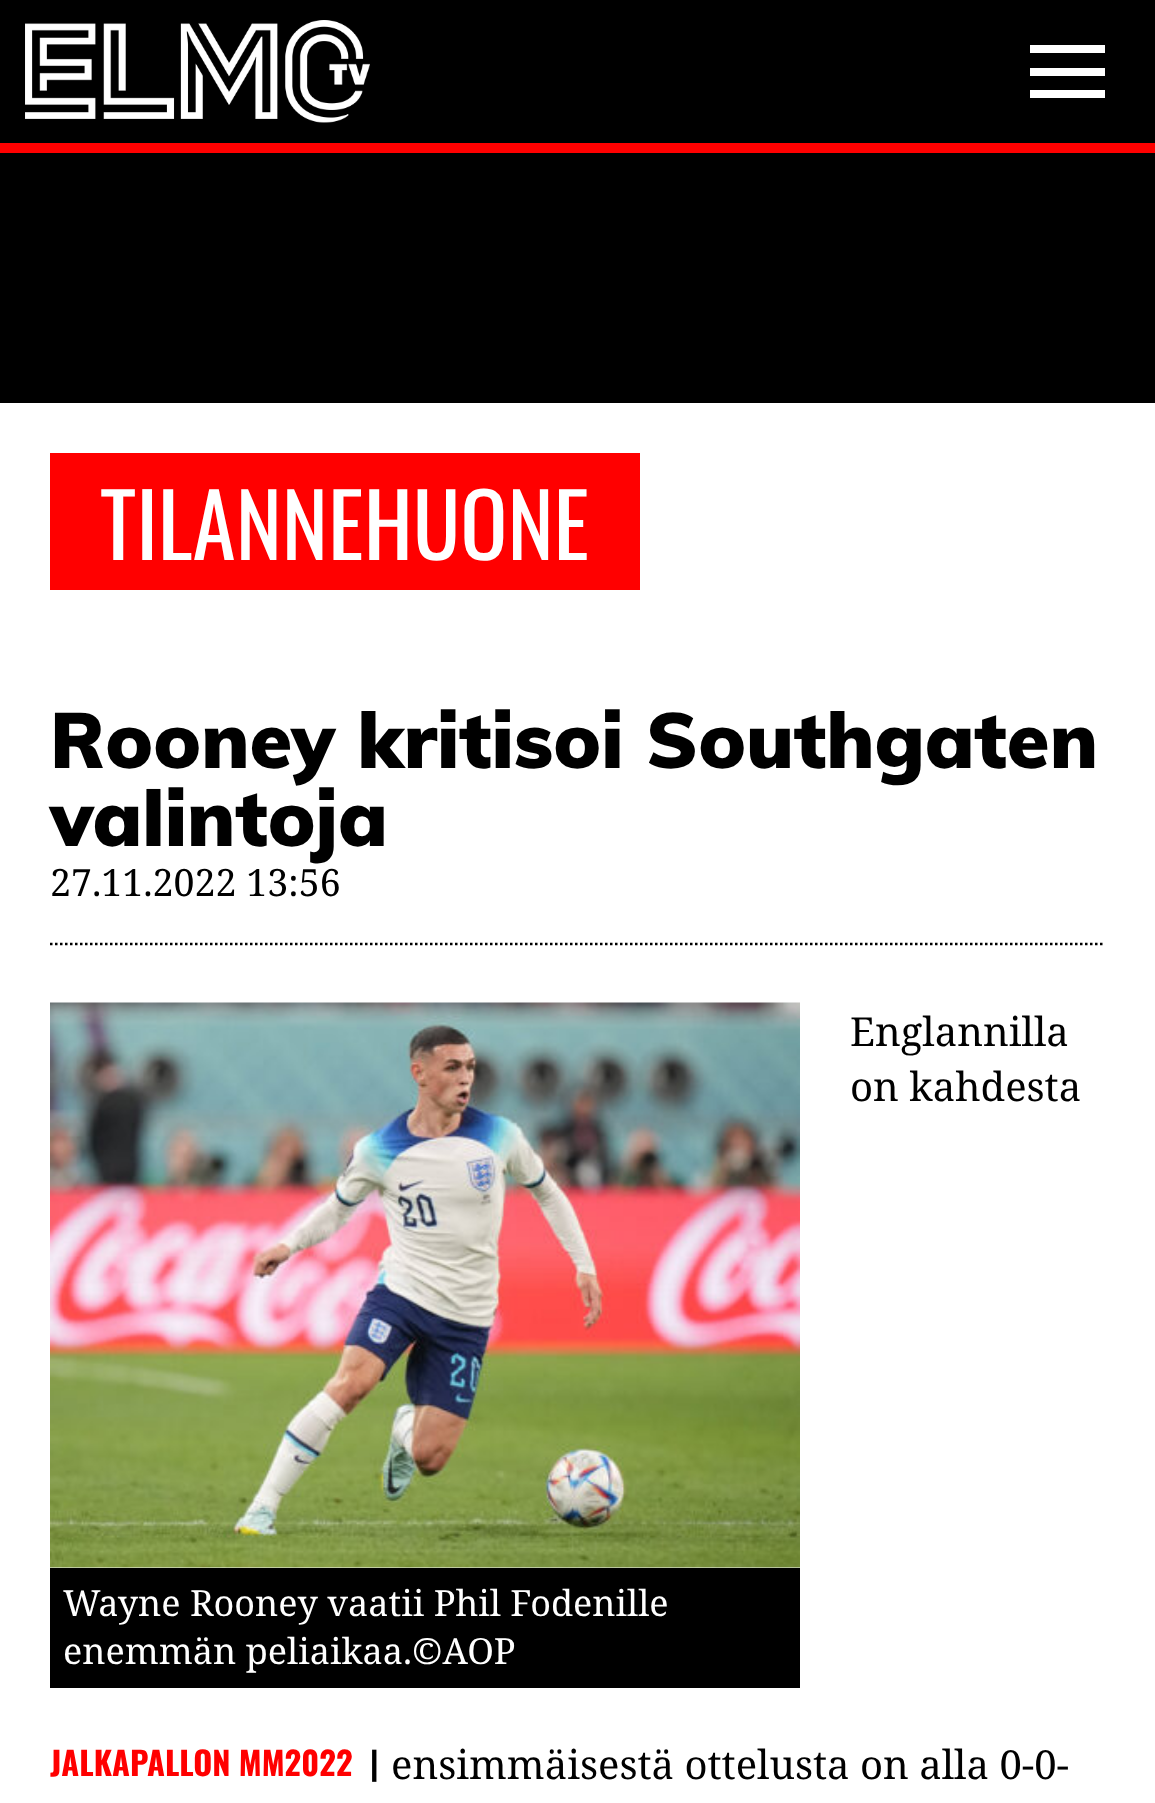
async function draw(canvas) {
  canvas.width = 1155
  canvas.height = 1803
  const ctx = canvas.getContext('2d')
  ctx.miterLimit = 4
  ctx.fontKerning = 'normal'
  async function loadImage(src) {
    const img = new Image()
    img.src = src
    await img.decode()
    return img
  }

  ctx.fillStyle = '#000'
  ctx.fillRect(0, 0, 1155, 1803)
  ctx.fillStyle = '#f00'
  ctx.fillRect(0, 143, 1155, 10)
  ctx.drawImage(await loadImage('image0.png'), 25, 20, 345, 103)
  ctx.fillStyle = '#fff'
  ctx.fillRect(1030, 45, 75, 8)
  ctx.fillRect(1030, 68, 75, 8)
  ctx.fillRect(1030, 90, 75, 8)
  ctx.fillRect(0, 403, 1155, 1400)
  ctx.fillStyle = '#f00'
  ctx.fillRect(50, 453, 590, 137)
  ctx.font = '87.5px Oswald'
  ctx.fillStyle = '#fff'
  ctx.fillText('TILANNEHUONE', 100, 560)
  ctx.font = '900 77.5px Muli'
  ctx.fillStyle = '#000'
  ctx.fillText('Rooney kritisoi Southgaten', 50, 768)
  ctx.fillText('valintoja', 50, 846)
  ctx.beginPath()
  ctx.moveTo(50, 944)
  ctx.lineTo(1105, 944)
  ctx.strokeStyle = '#000'
  ctx.lineWidth = 2.5
  ctx.setLineDash([2.5, 2.5])
  ctx.stroke()
  ctx.font = '37.5px Noto Serif'
  ctx.fillText('27.11.2022 13:56', 50, 896)
  ctx.drawImage(await loadImage('image1.png'), 50, 1002, 750, 566)
  ctx.fillRect(50, 1568, 750, 120)
  ctx.font = '36px Noto Serif'
  ctx.fillStyle = '#fff'
  ctx.fillText('Wayne Rooney vaatii Phil Fodenille', 63, 1616)
  ctx.fillText('enemmän peliaikaa.©AOP', 63, 1664)
  ctx.font = '40px Noto Serif'
  ctx.fillStyle = '#000'
  ctx.fillText('Englannilla', 850, 1046)
  ctx.fillText('on kahdesta', 850, 1101)
  ctx.fillText('ensimmäisestä ottelusta on alla 0-0-', 391, 1779)
  ctx.font = 'bold 32.5px Oswald'
  ctx.fillStyle = '#f00'
  ctx.fillText('JALKAPALLON MM2022', 50, 1776)
  ctx.fillStyle = '#000'
  ctx.fillText('|', 370, 1776)
}

draw(document.querySelector('canvas'))
